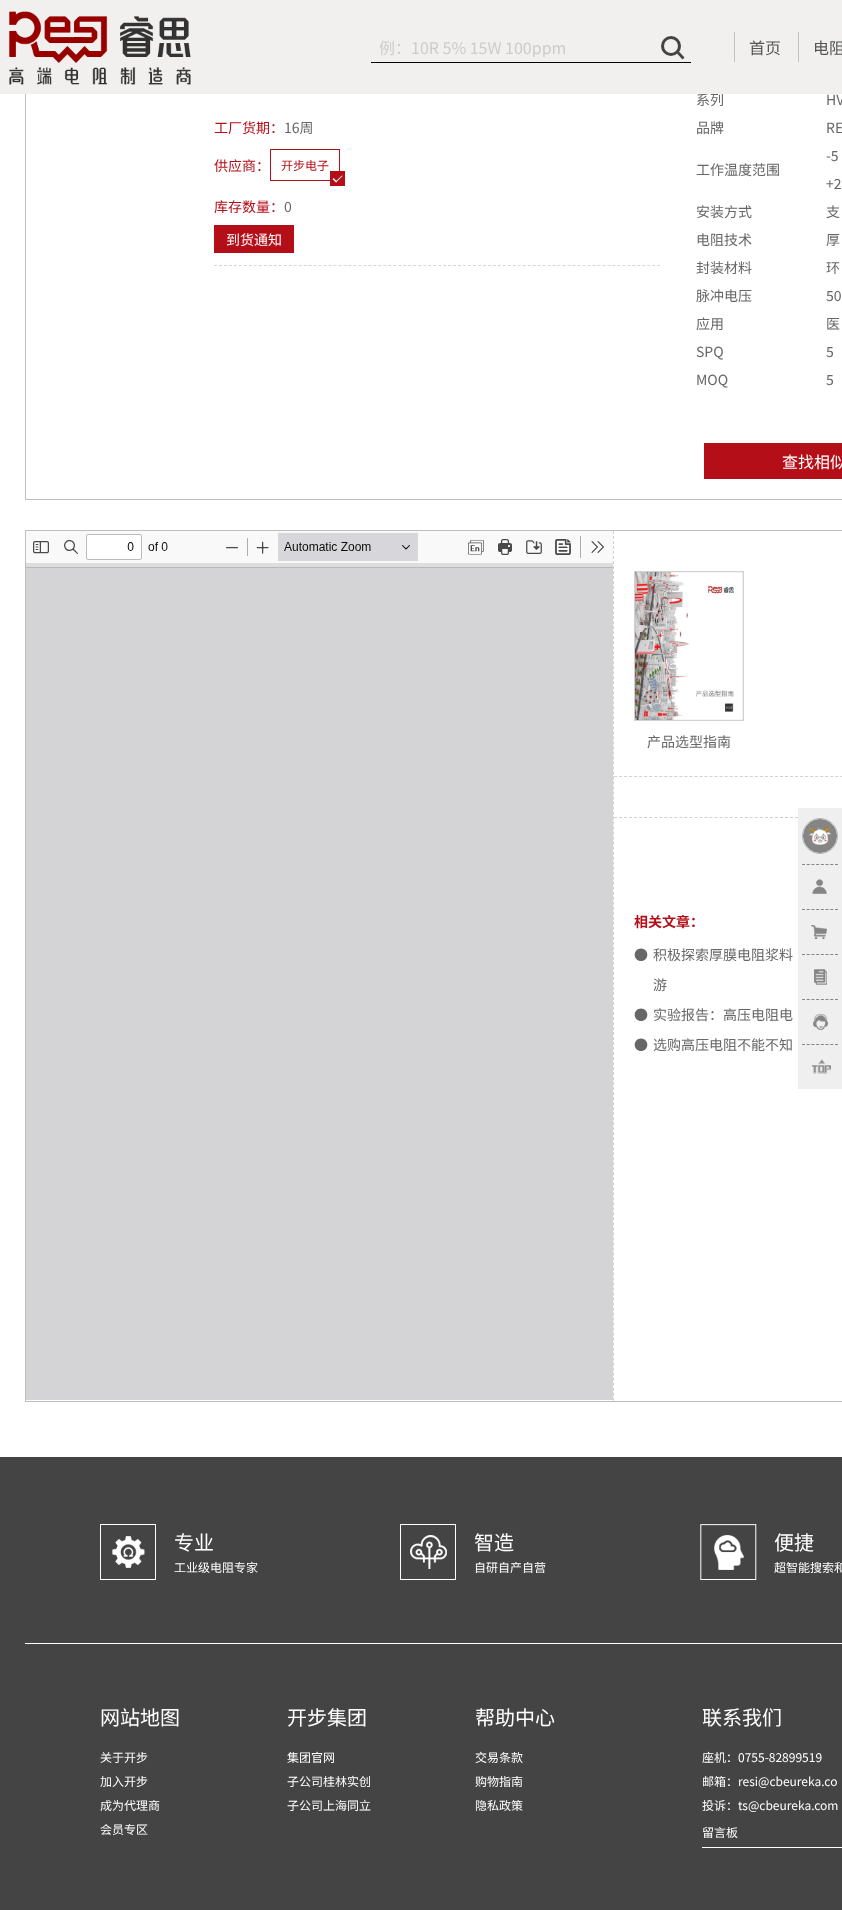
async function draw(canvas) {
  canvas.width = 842
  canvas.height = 1910
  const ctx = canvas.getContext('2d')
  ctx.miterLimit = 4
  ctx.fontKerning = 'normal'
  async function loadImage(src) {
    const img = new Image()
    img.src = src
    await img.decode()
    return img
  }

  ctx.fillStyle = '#fff'
  ctx.fillRect(0, 0, 842, 1910)
  ctx.strokeStyle = '#bebebe'
  ctx.strokeRect(25.5, -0.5, 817, 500)
  ctx.font = '14px Noto Sans SC'
  ctx.fillStyle = '#676767'
  ctx.fillText('系列', 696, 105)
  ctx.fillStyle = '#f1f0ee'
  ctx.fillRect(0, 0, 842, 94)
  ctx.drawImage(await loadImage('image0.png'), 9, 11, 182, 74)
  ctx.fillStyle = '#000'
  ctx.fillRect(371, 62, 320, 1)
  ctx.save()
  ctx.beginPath()
  ctx.rect(379, 37, 250, 20)
  ctx.clip()
  ctx.font = '16px Noto Sans SC'
  ctx.fillStyle = '#ccc'
  ctx.fillText('例：10R 5% 15W 100ppm', 379, 54)
  ctx.restore()
  ctx.fillStyle = '#444'
  ctx.beginPath()
  ctx.moveTo(679, 51.5)
  ctx.lineTo(684.5, 57.5)
  ctx.lineTo(682.5, 59.5)
  ctx.lineTo(677, 53.5)
  ctx.closePath()
  ctx.fill()
  ctx.beginPath()
  ctx.arc(671, 46, 8.5, 0, 2 * Math.PI)
  ctx.strokeStyle = '#444'
  ctx.lineWidth = 3
  ctx.stroke()
  ctx.fillStyle = '#c1c0be'
  ctx.fillRect(734, 32, 1, 30)
  ctx.font = '16px Noto Sans SC'
  ctx.fillStyle = '#555'
  ctx.fillText('首页', 749, 54)
  ctx.fillStyle = '#c1c0be'
  ctx.fillRect(798, 32, 1, 30)
  ctx.fillStyle = '#555'
  ctx.fillText('电阻', 813, 54)
  ctx.beginPath()
  ctx.moveTo(214, 265.5)
  ctx.lineTo(660, 265.5)
  ctx.strokeStyle = '#d7d7d7'
  ctx.lineWidth = 1
  ctx.setLineDash([3, 1.98])
  ctx.stroke()
  ctx.font = '14px Noto Sans SC'
  ctx.fillStyle = '#b40f19'
  ctx.fillText('工厂货期：', 214, 133)
  ctx.fillStyle = '#676767'
  ctx.fillText('16周', 284, 133)
  ctx.fillStyle = '#b40f19'
  ctx.fillText('供应商：', 214, 171)
  ctx.strokeStyle = '#b40f19'
  ctx.setLineDash([])
  ctx.strokeRect(270.5, 149.5, 69, 31)
  ctx.font = '12px Noto Sans SC'
  ctx.fillText('开步电子', 281, 170)
  ctx.fillRect(330, 171, 15, 15)
  ctx.fillStyle = '#fff'
  ctx.beginPath()
  ctx.moveTo(335.5, 181.5)
  ctx.lineTo(342, 175.5)
  ctx.lineTo(342.5, 176)
  ctx.lineTo(336, 182.5)
  ctx.closePath()
  ctx.fill()
  ctx.beginPath()
  ctx.moveTo(332.5, 179)
  ctx.lineTo(333.5, 178)
  ctx.lineTo(337, 181.5)
  ctx.lineTo(336, 182.5)
  ctx.closePath()
  ctx.fill()
  ctx.font = '14px Noto Sans SC'
  ctx.fillStyle = '#b40f19'
  ctx.fillText('库存数量：', 214, 212)
  ctx.fillStyle = '#676767'
  ctx.fillText('0', 284, 212)
  ctx.fillStyle = '#b40f19'
  ctx.fillRect(214, 225, 80, 28)
  ctx.fillStyle = '#fff'
  ctx.fillText('到货通知', 226, 245)
  ctx.fillStyle = '#676767'
  ctx.fillText('HV', 826, 105)
  ctx.fillText('品牌', 696, 133)
  ctx.fillText('RE', 826, 133)
  ctx.fillText('工作温度范围', 696, 175)
  ctx.fillText('-5', 826, 161)
  ctx.fillText('+2', 826, 189)
  ctx.fillText('安装方式', 696, 217)
  ctx.fillText('支', 826, 217)
  ctx.fillText('电阻技术', 696, 245)
  ctx.fillText('厚', 826, 245)
  ctx.fillText('封装材料', 696, 273)
  ctx.fillText('环', 826, 273)
  ctx.fillText('脉冲电压', 696, 301)
  ctx.fillText('50', 826, 301)
  ctx.fillText('应用', 696, 329)
  ctx.fillText('医', 826, 329)
  ctx.fillText('SPQ', 696, 357)
  ctx.fillText('5', 826, 357)
  ctx.fillText('MOQ', 696, 385)
  ctx.fillText('5', 826, 385)
  ctx.fillStyle = '#b40f19'
  ctx.fillRect(704, 443, 138, 36)
  ctx.font = '16px Noto Sans SC'
  ctx.fillStyle = '#fff'
  ctx.fillText('查找相似', 782, 468)
  ctx.strokeStyle = '#bebebe'
  ctx.strokeRect(25.5, 530.5, 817, 871)
  ctx.beginPath()
  ctx.moveTo(613.5, 531)
  ctx.lineTo(613.5, 1401)
  ctx.strokeStyle = '#d1d1d1'
  ctx.setLineDash([3, 2.01])
  ctx.stroke()
  ctx.drawImage(await loadImage('image1.png'), 26, 531, 587, 869)
  ctx.beginPath()
  ctx.moveTo(614, 776.5)
  ctx.lineTo(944, 776.5)
  ctx.setLineDash([3, 2.03])
  ctx.stroke()
  ctx.fillStyle = '#d1d1d1'
  ctx.fillRect(634, 571, 110, 150)
  ctx.drawImage(await loadImage('image2.png'), 635, 572, 108, 148)
  ctx.font = '14px Noto Sans SC'
  ctx.fillStyle = '#676767'
  ctx.fillText('产品选型指南', 647, 747)
  ctx.beginPath()
  ctx.moveTo(614, 817.5)
  ctx.lineTo(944, 817.5)
  ctx.stroke()
  ctx.font = 'bold 14px Noto Sans SC'
  ctx.fillStyle = '#b40f19'
  ctx.fillText('相关文章：', 634, 927)
  ctx.font = '14px Noto Sans SC'
  ctx.fillStyle = '#676767'
  ctx.fillText('●', 634, 960)
  ctx.fillText('积极探索厚膜电阻浆料', 653, 960)
  ctx.fillText('游', 653, 990)
  ctx.fillText('●', 634, 1020)
  ctx.fillText('实验报告：高压电阻电', 653, 1020)
  ctx.fillText('●', 634, 1050)
  ctx.fillText('选购高压电阻不能不知', 653, 1050)
  ctx.fillStyle = '#efefef'
  ctx.fillRect(798, 808, 44, 281)
  ctx.beginPath()
  ctx.arc(820, 836, 17.5, 0, 2 * Math.PI)
  ctx.strokeStyle = '#b7b7b7'
  ctx.setLineDash([])
  ctx.stroke()
  ctx.drawImage(await loadImage('image3.png'), 803, 819, 34, 34)
  ctx.beginPath()
  ctx.moveTo(802, 864.5)
  ctx.lineTo(838, 864.5)
  ctx.strokeStyle = '#858585'
  ctx.setLineDash([3, 1.71])
  ctx.stroke()
  ctx.drawImage(await loadImage('image4.png'), 812, 879, 15, 15)
  ctx.beginPath()
  ctx.moveTo(802, 909.5)
  ctx.lineTo(838, 909.5)
  ctx.stroke()
  ctx.drawImage(await loadImage('image5.png'), 811, 925, 16, 14)
  ctx.beginPath()
  ctx.moveTo(802, 954.5)
  ctx.lineTo(838, 954.5)
  ctx.stroke()
  ctx.drawImage(await loadImage('image6.png'), 814, 969, 13, 16)
  ctx.beginPath()
  ctx.moveTo(802, 999.5)
  ctx.lineTo(838, 999.5)
  ctx.stroke()
  ctx.drawImage(await loadImage('image7.png'), 813, 1014, 15, 16)
  ctx.beginPath()
  ctx.moveTo(802, 1044.5)
  ctx.lineTo(838, 1044.5)
  ctx.stroke()
  ctx.drawImage(await loadImage('image8.png'), 812, 1059, 19, 15)
  ctx.fillStyle = '#444'
  ctx.fillRect(0, 1457, 842, 453)
  ctx.fillStyle = '#fff'
  ctx.fillRect(25, 1643, 817, 1)
  ctx.drawImage(await loadImage('image9.png'), 100, 1524, 56, 56)
  ctx.font = '20px Noto Sans SC'
  ctx.fillText('专业', 174, 1550)
  ctx.font = '12px Noto Sans SC'
  ctx.fillText('工业级电阻专家', 174, 1572)
  ctx.drawImage(await loadImage('image10.png'), 400, 1524, 56, 56)
  ctx.font = '20px Noto Sans SC'
  ctx.fillText('智造', 474, 1550)
  ctx.font = '12px Noto Sans SC'
  ctx.fillText('自研自产自营', 474, 1572)
  ctx.drawImage(await loadImage('image11.png'), 700, 1524, 57, 56)
  ctx.font = '20px Noto Sans SC'
  ctx.fillText('便捷', 774, 1550)
  ctx.font = '12px Noto Sans SC'
  ctx.fillText('超智能搜索和', 774, 1572)
  ctx.font = '20px Noto Sans SC'
  ctx.fillText('网站地图', 100, 1725)
  ctx.font = '12px Noto Sans SC'
  ctx.fillText('关于开步', 100, 1762)
  ctx.fillText('加入开步', 100, 1786)
  ctx.fillText('成为代理商', 100, 1810)
  ctx.fillText('会员专区', 100, 1834)
  ctx.font = '20px Noto Sans SC'
  ctx.fillText('开步集团', 287, 1725)
  ctx.font = '12px Noto Sans SC'
  ctx.fillText('集团官网', 287, 1762)
  ctx.fillText('子公司桂林实创', 287, 1786)
  ctx.fillText('子公司上海同立', 287, 1810)
  ctx.font = '20px Noto Sans SC'
  ctx.fillText('帮助中心', 475, 1725)
  ctx.font = '12px Noto Sans SC'
  ctx.fillText('交易条款', 475, 1762)
  ctx.fillText('购物指南', 475, 1786)
  ctx.fillText('隐私政策', 475, 1810)
  ctx.font = '20px Noto Sans SC'
  ctx.fillText('联系我们', 702, 1725)
  ctx.font = '12px Noto Sans SC'
  ctx.fillText('座机：0755-82899519', 702, 1762)
  ctx.fillText('邮箱：resi@cbeureka.co', 702, 1786)
  ctx.fillText('投诉：ts@cbeureka.com', 702, 1810)
  ctx.fillRect(702, 1847, 140, 1)
  ctx.fillText('留言板', 702, 1837)
}

draw(document.querySelector('canvas'))
